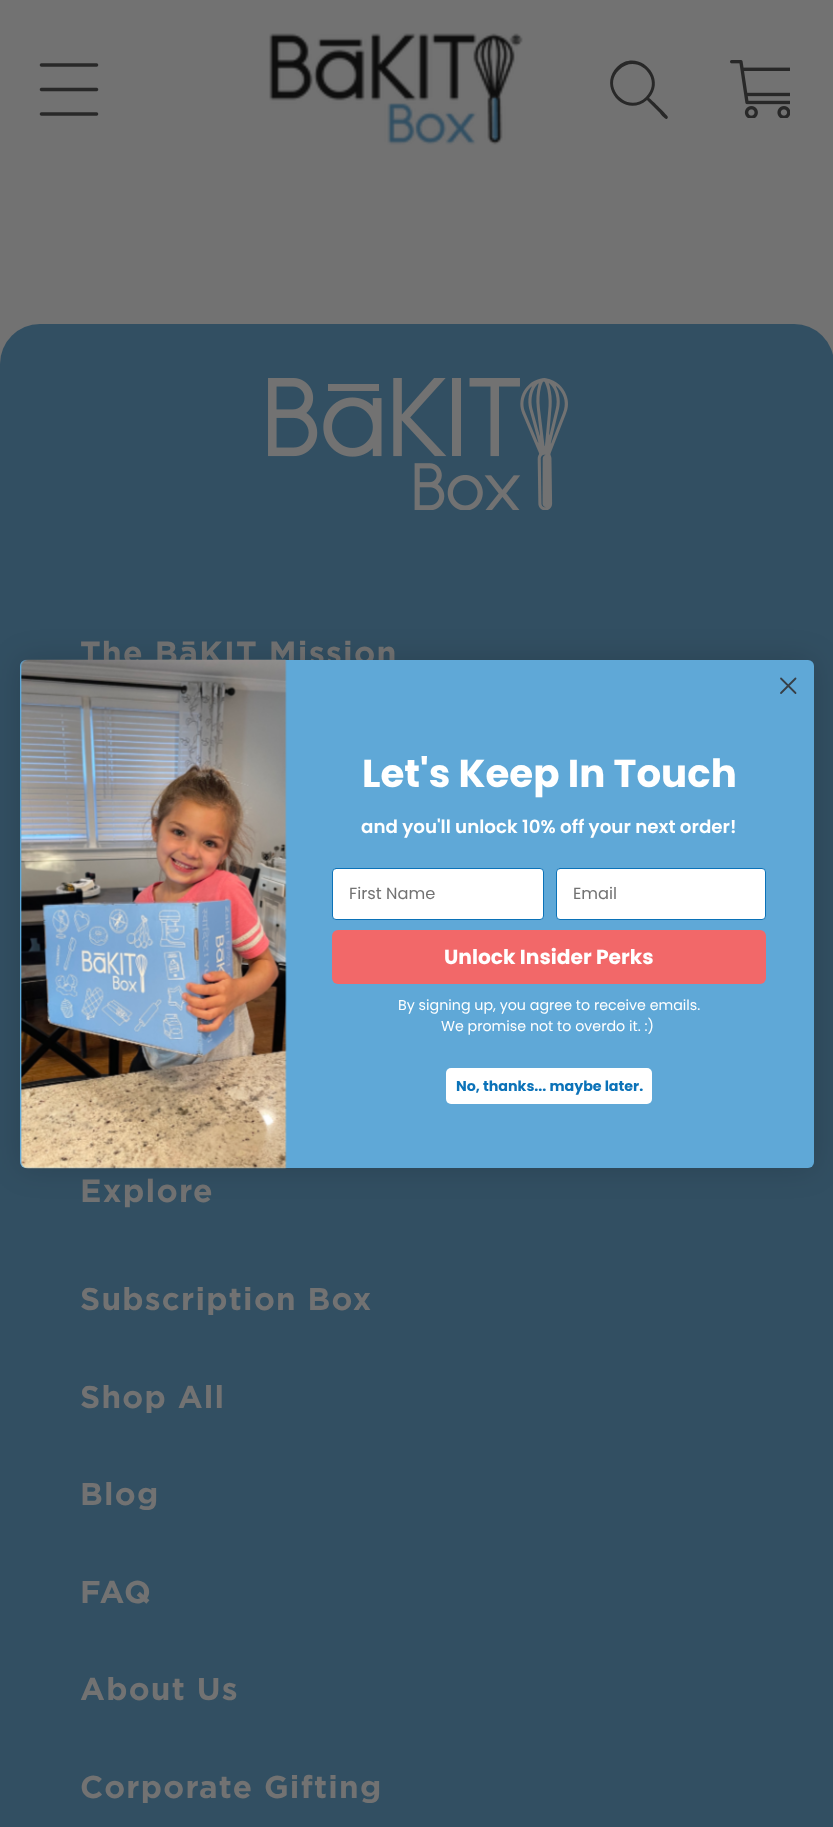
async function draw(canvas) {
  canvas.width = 833
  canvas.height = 1827
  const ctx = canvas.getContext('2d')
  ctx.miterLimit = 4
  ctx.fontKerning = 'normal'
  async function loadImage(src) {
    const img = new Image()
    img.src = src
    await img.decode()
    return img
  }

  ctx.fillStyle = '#727272'
  ctx.fillRect(0, 0, 833, 1827)
  ctx.drawImage(await loadImage('image0.png'), 39, 63, 60, 53)
  ctx.drawImage(await loadImage('image1.png'), 269, 33, 254, 112)
  ctx.fillStyle = '#282828'
  ctx.beginPath()
  ctx.moveTo(646, 97)
  ctx.bezierCurveTo(628, 115, 601, 87, 619, 70)
  ctx.bezierCurveTo(637, 52, 664, 79, 646, 97)
  ctx.closePath()
  ctx.moveTo(647, 100)
  ctx.bezierCurveTo(625, 119, 597, 87, 617, 67)
  ctx.bezierCurveTo(637, 47, 668, 77, 649, 98)
  ctx.bezierCurveTo(652, 100, 668, 116, 668, 117)
  ctx.lineTo(667, 119)
  ctx.bezierCurveTo(665, 120, 660, 113, 659, 112)
  ctx.closePath()
  ctx.fill('evenodd')
  ctx.drawImage(await loadImage('image2.png'), 730, 60, 60, 58)
  ctx.fillStyle = '#324f62'
  ctx.beginPath()
  ctx.roundRect(0, 324, 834, 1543, 40)
  ctx.fill()
  ctx.drawImage(await loadImage('image3.png'), 268, 378, 300, 132)
  ctx.letterSpacing = '1.25px'
  ctx.font = 'bold 32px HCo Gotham'
  ctx.fillStyle = '#727272'
  ctx.fillText('The BāKIT Mission', 80, 664)
  ctx.fillText('Explore', 80, 1202)
  ctx.font = 'bold 31.5px HCo Gotham'
  ctx.fillText('Subscription Box', 80, 1310)
  ctx.fillText('Shop All', 80, 1408)
  ctx.fillText('Blog', 80, 1505)
  ctx.fillText('FAQ', 80, 1603)
  ctx.fillText('About Us', 80, 1700)
  ctx.fillText('Corporate Gifting', 80, 1798)
  ctx.fillStyle = '#00000026'
  ctx.filter = 'blur(15.5px)'
  ctx.beginPath()
  ctx.roundRect(20, 660, 794, 508, 6)
  ctx.fill()
  ctx.filter = 'none'
  ctx.fillStyle = '#5fa8d7'
  ctx.beginPath()
  ctx.roundRect(20, 660, 794, 508, 6)
  ctx.fill()
  ctx.beginPath()
  ctx.moveTo(781, 678.5)
  ctx.lineTo(795.5, 693)
  ctx.moveTo(781, 693)
  ctx.lineTo(795.5, 678.5)
  ctx.closePath()
  ctx.strokeStyle = '#373f47'
  ctx.lineWidth = 1.8
  ctx.lineCap = 'round'
  ctx.lineJoin = 'round'
  ctx.stroke()
  ctx.drawImage(await loadImage('image4.png'), 21, 659, 266, 510)
  ctx.letterSpacing = '0px'
  ctx.font = 'bold 38.75px Poppins'
  ctx.fillStyle = '#fff'
  ctx.fillText('Let\'s Keep In Touch', 362, 787)
  ctx.font = '600 18.3px Poppins'
  ctx.fillText('and you\'ll unlock 10% off your next order!', 361, 833)
  ctx.beginPath()
  ctx.roundRect(332.5, 868.5, 211, 51, 3.5)
  ctx.fill()
  ctx.strokeStyle = '#0b72b8'
  ctx.lineWidth = 1
  ctx.lineJoin = 'miter'
  ctx.stroke()
  ctx.font = '16.25px Poppins'
  ctx.fillStyle = '#727272'
  ctx.fillText('First Name', 349, 899)
  ctx.fillStyle = '#fff'
  ctx.beginPath()
  ctx.roundRect(556.5, 868.5, 209, 51, 3.5)
  ctx.fill()
  ctx.stroke()
  ctx.fillStyle = '#727272'
  ctx.fillText('Email', 573, 899)
  ctx.fillStyle = '#f26869'
  ctx.beginPath()
  ctx.roundRect(332, 930, 434, 54, 6)
  ctx.fill()
  ctx.font = 'bold 20.25px Poppins'
  ctx.fillStyle = '#fff'
  ctx.fillText('Unlock Insider Perks', 444, 964)
  ctx.font = '14.25px Poppins'
  ctx.fillText('By signing up, you agree to receive emails.', 398, 1010)
  ctx.fillText('We promise not to overdo it. :)', 441, 1031)
  ctx.beginPath()
  ctx.roundRect(446, 1068, 206, 36, 5)
  ctx.fill()
  ctx.font = 'bold 14.25px Poppins'
  ctx.fillStyle = '#0b72b8'
  ctx.fillText('No, thanks... maybe later.', 456, 1091)
}

draw(document.querySelector('canvas'))
